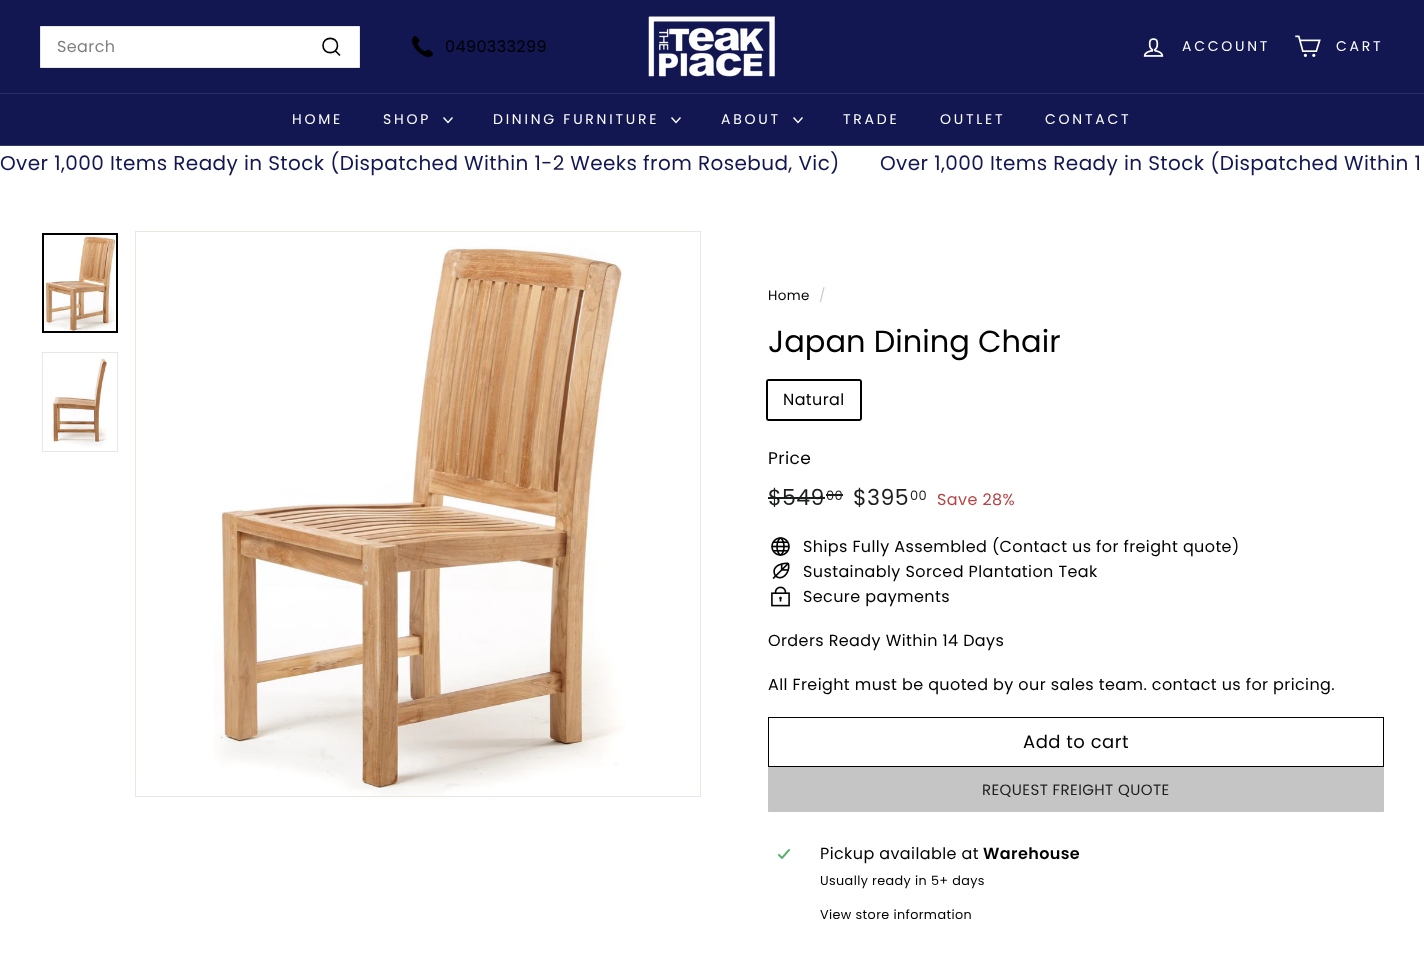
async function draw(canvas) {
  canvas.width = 1424
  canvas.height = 955
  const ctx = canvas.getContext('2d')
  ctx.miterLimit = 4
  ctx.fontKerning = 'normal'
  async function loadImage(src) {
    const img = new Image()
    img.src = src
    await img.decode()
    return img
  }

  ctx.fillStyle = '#fff'
  ctx.fillRect(0, 0, 1424, 955)
  ctx.fillStyle = '#121651'
  ctx.fillRect(0, 0, 1424, 93)
  ctx.fillStyle = '#fff'
  ctx.beginPath()
  ctx.rect(40.5, 26.5, 319, 41)
  ctx.fill()
  ctx.strokeStyle = '#e8e8e1'
  ctx.stroke()
  ctx.letterSpacing = '0.4px'
  ctx.font = '16px Poppins'
  ctx.fillStyle = '#808080'
  ctx.fillText('Search', 57, 52)
  ctx.beginPath()
  ctx.moveTo(337.5, 45.5)
  ctx.bezierCurveTo(337.5, 55, 323, 55, 323, 45.5)
  ctx.bezierCurveTo(323, 36, 337.5, 36, 337.5, 45.5)
  ctx.moveTo(340, 55.5)
  ctx.lineTo(335.5, 51)
  ctx.strokeStyle = '#000'
  ctx.lineWidth = 1.6
  ctx.stroke()
  ctx.drawImage(await loadImage('image0.png'), 412, 36, 21, 21)
  ctx.fillStyle = '#000'
  ctx.fillText('0490333299', 445, 52)
  ctx.drawImage(await loadImage('image1.png'), 648, 16, 127, 61)
  ctx.drawImage(await loadImage('image2.png'), 1143, 38, 21, 19)
  ctx.letterSpacing = '2.75px'
  ctx.font = '14px Poppins'
  ctx.fillStyle = '#fff'
  ctx.fillText('ACCOUNT', 1182, 51)
  ctx.drawImage(await loadImage('image3.png'), 1295, 35, 26, 22)
  ctx.fillText('CART', 1336, 51)
  ctx.fillStyle = '#121651'
  ctx.fillRect(0, 94, 1424, 51)
  ctx.fillStyle = '#2a2d62'
  ctx.fillRect(0, 93, 1424, 1)
  ctx.fillStyle = '#fff'
  ctx.fillText('HOME', 292, 124)
  ctx.fillText('SHOP', 383, 124)
  ctx.beginPath()
  ctx.moveTo(443.5, 117.5)
  ctx.lineTo(448, 122.5)
  ctx.lineTo(452.5, 117.5)
  ctx.strokeStyle = '#fff'
  ctx.lineWidth = 1.4
  ctx.stroke()
  ctx.fillText('DINING FURNITURE', 493, 124)
  ctx.beginPath()
  ctx.moveTo(671.5, 117.5)
  ctx.lineTo(676, 122.5)
  ctx.lineTo(680.5, 117.5)
  ctx.stroke()
  ctx.fillText('ABOUT', 721, 124)
  ctx.beginPath()
  ctx.moveTo(793.5, 117.5)
  ctx.lineTo(798, 122.5)
  ctx.lineTo(802.5, 117.5)
  ctx.stroke()
  ctx.fillText('TRADE', 843, 124)
  ctx.fillText('OUTLET', 940, 124)
  ctx.fillText('CONTACT', 1045, 124)
  ctx.fillStyle = '#36396b'
  ctx.fillRect(0, 145, 1424, 1)
  ctx.letterSpacing = '0.4px'
  ctx.font = '20px Poppins'
  ctx.fillStyle = '#121651'
  ctx.fillText('Over 1,000 Items Ready in Stock (Dispatched Within 1-2 Weeks from Rosebud, Vic)', 0, 170)
  ctx.fillText('Over 1,000 Items Ready in Stock (Dispatched Within 1', 880, 170)
  ctx.drawImage(await loadImage('image4.png'), 44, 235, 72, 96)
  ctx.strokeStyle = '#000'
  ctx.lineWidth = 2
  ctx.strokeRect(43, 234, 74, 98)
  ctx.strokeStyle = '#e8e8e1'
  ctx.lineWidth = 1
  ctx.strokeRect(42.5, 352.5, 75, 99)
  ctx.drawImage(await loadImage('image5.png'), 51, 358, 57, 89)
  ctx.strokeRect(135.5, 231.5, 565, 565)
  ctx.drawImage(await loadImage('image6.png'), 214, 246, 412, 550)
  ctx.font = '13.5px Poppins'
  ctx.fillStyle = '#000'
  ctx.fillText('Home', 768, 300)
  ctx.fillStyle = '#ccc'
  ctx.fillText('/', 819, 300)
  ctx.letterSpacing = '0px'
  ctx.font = '30.5px Poppins'
  ctx.fillStyle = '#000'
  ctx.fillText('Japan Dining Chair', 768, 352)
  ctx.beginPath()
  ctx.roundRect(767, 380, 94, 40, 2)
  ctx.strokeStyle = '#000'
  ctx.lineWidth = 2
  ctx.stroke()
  ctx.fillStyle = '#fff'
  ctx.beginPath()
  ctx.roundRect(768, 381, 92, 38, 1)
  ctx.fill()
  ctx.letterSpacing = '0.4px'
  ctx.font = '16px Poppins'
  ctx.fillStyle = '#000'
  ctx.fillText('Natural', 783, 405)
  ctx.font = '17px Poppins'
  ctx.fillText('Price', 768, 464)
  ctx.font = '22px Poppins'
  ctx.fillStyle = '#1c1d1d'
  ctx.fillText('$549', 768, 505)
  ctx.fillRect(768, 497, 57, 2)
  ctx.font = '13px Poppins'
  ctx.fillText('00', 826, 500)
  ctx.fillRect(826, 494, 17, 2)
  ctx.font = '22px Poppins'
  ctx.fillText('$395', 853, 505)
  ctx.font = '13px Poppins'
  ctx.fillText('00', 910, 500)
  ctx.font = '16px Poppins'
  ctx.fillStyle = '#ba4444'
  ctx.fillText('Save 28%', 937, 505)
  ctx.drawImage(await loadImage('image7.png'), 771, 537, 19, 19)
  ctx.fillStyle = '#000'
  ctx.fillText('Ships Fully Assembled (Contact us for freight quote)', 803, 552)
  ctx.drawImage(await loadImage('image8.png'), 772, 562, 18, 17)
  ctx.fillText('Sustainably Sorced Plantation Teak', 803, 577)
  ctx.drawImage(await loadImage('image9.png'), 771, 586, 19, 21)
  ctx.fillText('Secure payments', 803, 602)
  ctx.fillText('Orders Ready Within 14 Days', 768, 646)
  ctx.fillText('All Freight must be quoted by our sales team. contact us for pricing.', 768, 690)
  ctx.lineWidth = 1
  ctx.strokeRect(768.5, 717.5, 615, 49)
  ctx.letterSpacing = '0.5px'
  ctx.font = '18px Poppins'
  ctx.fillText('Add to cart', 1023, 748)
  ctx.fillStyle = '#c5c5c5'
  ctx.beginPath()
  ctx.roundRect(768, 767, 616, 45, 1)
  ctx.fill()
  ctx.letterSpacing = '0.4px'
  ctx.font = '15px Poppins'
  ctx.fillStyle = '#1c1d1d'
  ctx.fillText('REQUEST FREIGHT QUOTE', 982, 795)
  ctx.drawImage(await loadImage('image10.png'), 778, 849, 12, 10)
  ctx.font = '16px Poppins'
  ctx.fillStyle = '#000'
  ctx.fillText('Pickup available at', 820, 859)
  ctx.font = '600 16px Poppins'
  ctx.fillText('Warehouse', 983, 859)
  ctx.font = '12.75px Poppins'
  ctx.fillText('Usually ready in 5+ days', 820, 885)
  ctx.fillText('View store information', 820, 919)
}

draw(document.querySelector('canvas'))
